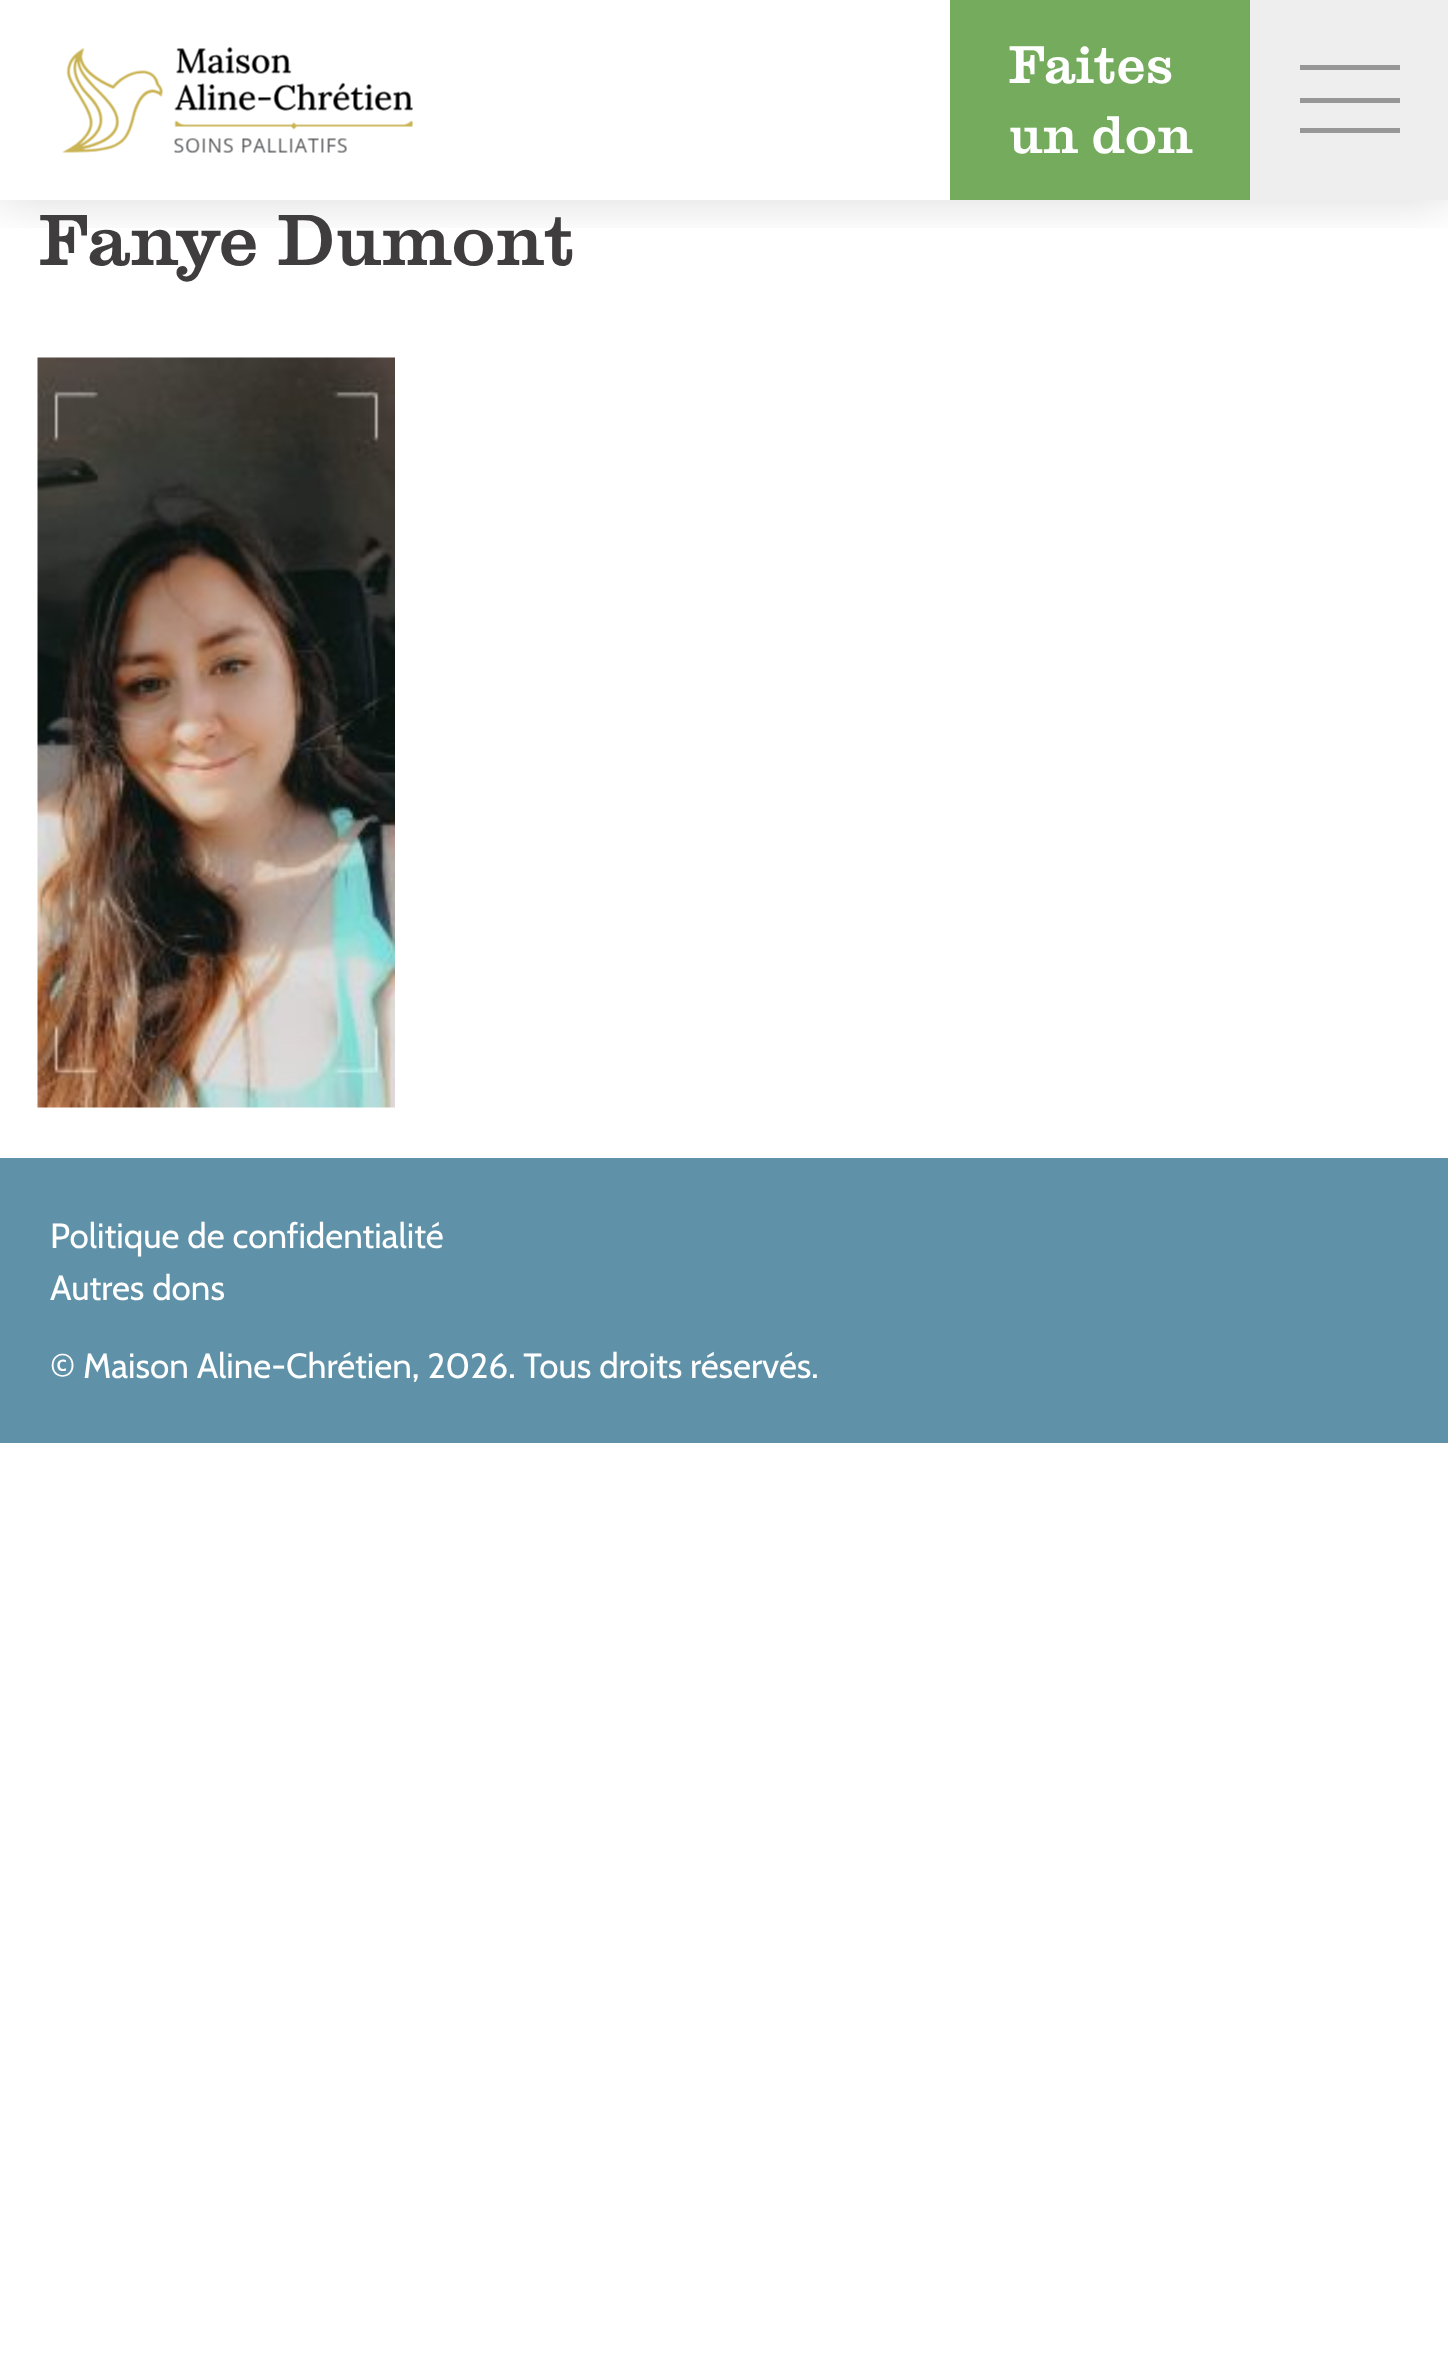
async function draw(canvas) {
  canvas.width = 1448
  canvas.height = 2356
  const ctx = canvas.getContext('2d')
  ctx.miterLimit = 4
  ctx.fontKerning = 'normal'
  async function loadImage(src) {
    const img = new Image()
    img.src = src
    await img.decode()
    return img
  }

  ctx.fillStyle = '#fff'
  ctx.fillRect(0, 0, 1448, 2356)
  ctx.drawImage(await loadImage('image0.png'), 62, 47, 351, 106)
  ctx.fillStyle = '#74ab5d'
  ctx.fillRect(950, 0, 300, 200)
  ctx.fillStyle = '#eee'
  ctx.fillRect(1250, 0, 198, 200)
  ctx.fillStyle = '#979797'
  ctx.fillRect(1300, 65, 100, 5)
  ctx.fillRect(1300, 98, 100, 5)
  ctx.fillRect(1300, 128, 100, 5)
  ctx.save()
  ctx.beginPath()
  ctx.rect(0, 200, 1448, 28)
  ctx.clip()
  ctx.fillStyle = '#00000026'
  ctx.filter = 'blur(25px)'
  ctx.beginPath()
  ctx.rect(0, 0, 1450, 200)
  ctx.fill()
  ctx.filter = 'none'
  ctx.restore()
  ctx.font = '500 55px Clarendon'
  ctx.fillStyle = '#fff'
  ctx.fillText('Faites', 1008, 83)
  ctx.fillText('un don', 1008, 153)
  ctx.font = '500 75px Clarendon'
  ctx.fillStyle = '#403d3e'
  ctx.fillText('Fanye Dumont', 38, 265)
  ctx.drawImage(await loadImage('image1.png'), 37, 357, 358, 751)
  ctx.fillStyle = '#5f92a8'
  ctx.fillRect(0, 1158, 1448, 285)
  ctx.font = '35px Cabin'
  ctx.fillStyle = '#fff'
  ctx.fillText('Politique de confidentialité', 50, 1248)
  ctx.fillText('Autres dons', 50, 1300)
  ctx.fillText('© Maison Aline-Chrétien, 2026. Tous droits réservés.', 50, 1378)
}

draw(document.querySelector('canvas'))
